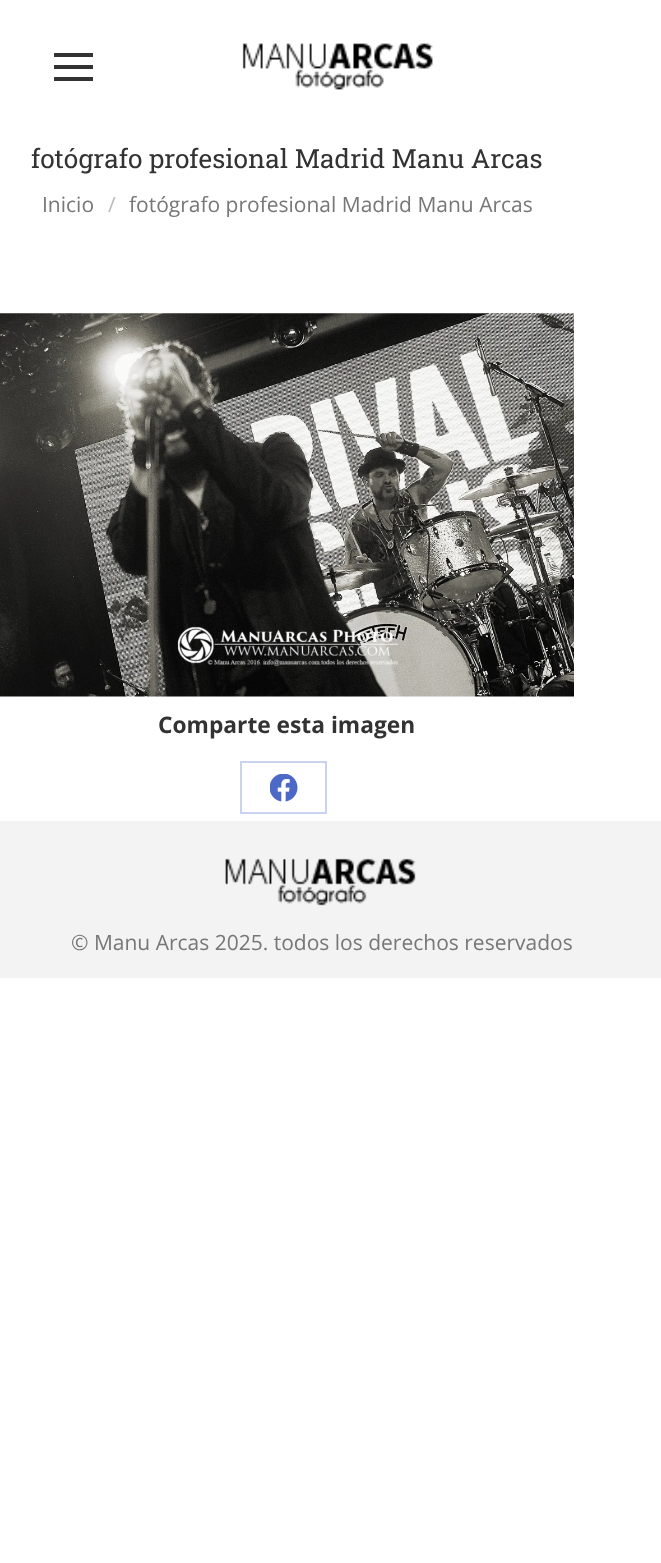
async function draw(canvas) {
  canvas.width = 661
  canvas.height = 1563
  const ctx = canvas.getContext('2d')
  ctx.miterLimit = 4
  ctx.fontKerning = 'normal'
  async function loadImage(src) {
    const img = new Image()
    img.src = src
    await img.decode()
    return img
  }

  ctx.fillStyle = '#fff'
  ctx.fillRect(0, 0, 661, 1563)
  ctx.fillStyle = '#333'
  ctx.fillRect(54, 53, 39, 4)
  ctx.fillRect(54, 65, 39, 4)
  ctx.fillRect(54, 77, 39, 4)
  ctx.drawImage(await loadImage('image0.png'), 242, 43, 191, 47)
  ctx.font = '26.25px Roboto Slab'
  ctx.fillText('fotógrafo profesional Madrid Manu Arcas', 31, 168)
  ctx.font = '21px Open Sans'
  ctx.fillStyle = '#777'
  ctx.fillText('Inicio', 42, 212)
  ctx.fillStyle = '#bbb'
  ctx.fillText('/', 108, 212)
  ctx.fillStyle = '#777'
  ctx.fillText('fotógrafo profesional Madrid Manu Arcas', 129, 212)
  ctx.drawImage(await loadImage('image1.png'), 0, 313, 574, 384)
  ctx.font = 'bold 22.75px Open Sans'
  ctx.fillStyle = '#333'
  ctx.fillText('Comparte esta imagen', 158, 733)
  ctx.strokeStyle = '#c9d2ee'
  ctx.lineWidth = 2
  ctx.strokeRect(241, 762, 85, 51)
  ctx.drawImage(await loadImage('image2.png'), 270, 774, 28, 28)
  ctx.fillStyle = '#f3f3f3'
  ctx.fillRect(0, 821, 661, 157)
  ctx.drawImage(await loadImage('image3.png'), 225, 858, 191, 48)
  ctx.font = '21px Open Sans'
  ctx.fillStyle = '#777'
  ctx.fillText('© Manu Arcas 2025. todos los derechos reservados', 71, 950)
}

draw(document.querySelector('canvas'))
